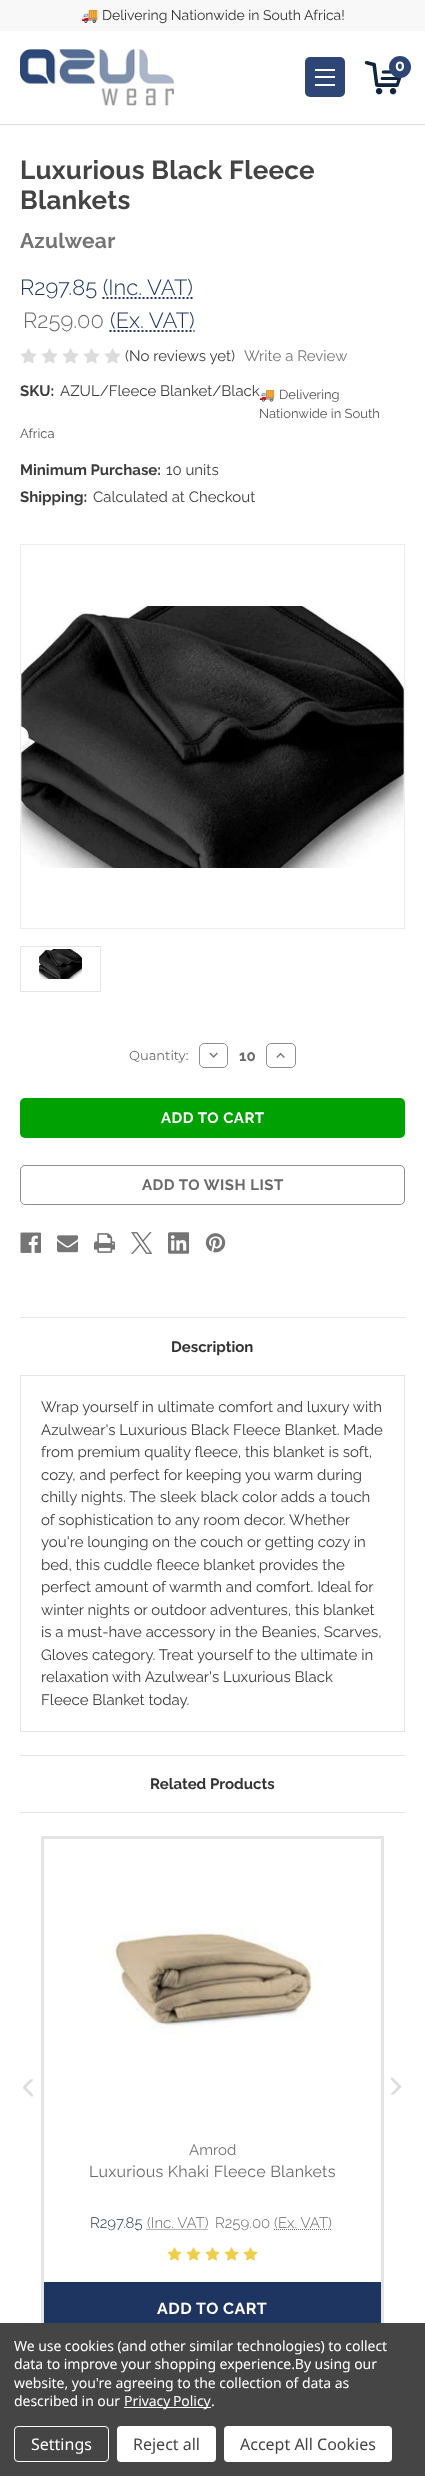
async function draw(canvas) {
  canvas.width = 425
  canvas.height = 2476
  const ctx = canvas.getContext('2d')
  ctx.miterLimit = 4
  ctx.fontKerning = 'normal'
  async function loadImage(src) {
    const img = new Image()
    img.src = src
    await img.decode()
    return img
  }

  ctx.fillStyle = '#fff'
  ctx.fillRect(0, 0, 425, 2476)
  ctx.fillStyle = '#dcdcdc'
  ctx.fillRect(0, 124, 425, 1)
  ctx.fillStyle = '#f8f8f8'
  ctx.fillRect(0, 0, 425, 31)
  ctx.font = '14px Noto Color Emoji'
  ctx.fillStyle = '#333'
  ctx.fillText('🚚', 81, 20)
  ctx.font = '14px Raleway'
  ctx.fillText('Delivering Nationwide in South Africa!', 102, 20)
  ctx.fillStyle = '#2d4676'
  ctx.beginPath()
  ctx.roundRect(305, 57, 40, 40, 5)
  ctx.fill()
  ctx.fillStyle = '#fff'
  ctx.fillRect(315, 76, 20, 2)
  ctx.fillRect(315, 69, 20, 2)
  ctx.fillRect(315, 84, 20, 2)
  ctx.drawImage(await loadImage('image0.png'), 20, 49, 154, 57)
  ctx.drawImage(await loadImage('image1.png'), 364, 60, 38, 35)
  ctx.fillStyle = '#2d4676'
  ctx.beginPath()
  ctx.arc(400, 67, 11, 0, 2 * Math.PI)
  ctx.fill()
  ctx.font = 'bold 16px Raleway'
  ctx.fillStyle = '#fff'
  ctx.fillText('0', 395, 71)
  ctx.letterSpacing = '0.25px'
  ctx.font = 'bold 26px Raleway'
  ctx.fillStyle = '#444'
  ctx.fillText('Luxurious Black Fleece', 20, 179)
  ctx.fillText('Blankets', 20, 209)
  ctx.font = 'bold 21px Raleway'
  ctx.fillStyle = '#757575'
  ctx.fillText('Azulwear', 20, 248)
  ctx.letterSpacing = '0px'
  ctx.font = '300 22px Raleway'
  ctx.fillStyle = '#1e3561'
  ctx.fillText('R297.85 (Inc. VAT)', 20, 295)
  ctx.beginPath()
  ctx.moveTo(102.5, 298)
  ctx.lineTo(193, 298)
  ctx.strokeStyle = '#1e3561'
  ctx.lineWidth = 2
  ctx.setLineDash([2, 2])
  ctx.stroke()
  ctx.fillStyle = '#6a6a6a'
  ctx.fillText('R259.00', 23, 328)
  ctx.fillStyle = '#1e3561'
  ctx.fillText('(Ex. VAT)', 110, 328)
  ctx.beginPath()
  ctx.moveTo(109.5, 331)
  ctx.lineTo(194.5, 331)
  ctx.stroke()
  ctx.drawImage(await loadImage('image2.png'), 20, 348, 17, 16)
  ctx.drawImage(await loadImage('image2.png'), 41, 348, 17, 16)
  ctx.drawImage(await loadImage('image2.png'), 62, 348, 17, 16)
  ctx.drawImage(await loadImage('image2.png'), 83, 348, 17, 16)
  ctx.drawImage(await loadImage('image2.png'), 104, 348, 17, 16)
  ctx.font = '15px Raleway'
  ctx.fillStyle = '#3c3c3c'
  ctx.fillText('(No reviews yet)', 125, 361)
  ctx.fillStyle = '#757575'
  ctx.fillText('Write a Review', 244, 361)
  ctx.font = 'bold 15px Raleway'
  ctx.fillStyle = '#3c3c3c'
  ctx.fillText('SKU:', 20, 396)
  ctx.font = '15px Raleway'
  ctx.fillText('AZUL/Fleece Blanket/Black', 60, 396)
  ctx.font = '13px Noto Color Emoji'
  ctx.fillStyle = '#555'
  ctx.fillText('🚚', 259, 399)
  ctx.font = '13px Raleway'
  ctx.fillText('Delivering', 279, 399)
  ctx.fillText('Nationwide in South', 259, 418)
  ctx.fillText('Africa', 20, 438)
  ctx.font = 'bold 15px Raleway'
  ctx.fillStyle = '#3c3c3c'
  ctx.fillText('Minimum Purchase:', 20, 475)
  ctx.font = '15px Raleway'
  ctx.fillText('10 units', 166, 475)
  ctx.font = 'bold 15px Raleway'
  ctx.fillText('Shipping:', 20, 502)
  ctx.font = '15px Raleway'
  ctx.fillText('Calculated at Checkout', 93, 502)
  ctx.strokeStyle = '#ececec'
  ctx.lineWidth = 1
  ctx.setLineDash([])
  ctx.strokeRect(20.5, 544.5, 384, 384)
  ctx.drawImage(await loadImage('image3.png'), 21, 606, 383, 262)
  ctx.strokeStyle = '#e5e5e5'
  ctx.strokeRect(20.5, 946.5, 80, 45)
  ctx.drawImage(await loadImage('image4.png'), 39, 949, 43, 30)
  ctx.font = '13px Montserrat'
  ctx.fillStyle = '#6a6a6a'
  ctx.fillText('Quantity:', 129, 1060)
  ctx.beginPath()
  ctx.roundRect(199.5, 1043.5, 28, 24, 4.5)
  ctx.strokeStyle = '#8f8f8f'
  ctx.stroke()
  ctx.drawImage(await loadImage('image5.png'), 209, 1052, 9, 6)
  ctx.font = 'bold 15px Raleway'
  ctx.fillText('10', 239, 1061)
  ctx.beginPath()
  ctx.roundRect(266.5, 1043.5, 29, 24, 4.5)
  ctx.stroke()
  ctx.drawImage(await loadImage('image6.png'), 276, 1052, 9, 6)
  ctx.fillStyle = '#00a102'
  ctx.beginPath()
  ctx.roundRect(20, 1098, 385, 40, 5)
  ctx.fill()
  ctx.letterSpacing = '0.5px'
  ctx.fillStyle = '#fff'
  ctx.fillText('ADD TO CART', 161, 1123)
  ctx.beginPath()
  ctx.roundRect(20.5, 1165.5, 384, 39, 4.5)
  ctx.stroke()
  ctx.fillStyle = '#6a6a6a'
  ctx.fillText('ADD TO WISH LIST', 142, 1190)
  ctx.drawImage(await loadImage('image7.png'), 20, 1232, 21, 21)
  ctx.drawImage(await loadImage('image8.png'), 57, 1235, 21, 18)
  ctx.drawImage(await loadImage('image9.png'), 94, 1233, 21, 20)
  ctx.drawImage(await loadImage('image10.png'), 131, 1232, 21, 22)
  ctx.drawImage(await loadImage('image11.png'), 168, 1232, 21, 22)
  ctx.drawImage(await loadImage('image12.png'), 205, 1233, 21, 20)
  ctx.fillStyle = '#e5e5e5'
  ctx.fillRect(20, 1375, 385, 1)
  ctx.fillRect(20, 1317, 385, 1)
  ctx.letterSpacing = '0px'
  ctx.fillStyle = '#333'
  ctx.fillText('Description', 171, 1352)
  ctx.fillStyle = '#e5e5e5'
  ctx.fillRect(404, 1376, 1, 356)
  ctx.fillRect(20, 1731, 385, 1)
  ctx.fillRect(20, 1376, 1, 356)
  ctx.font = '15px Raleway'
  ctx.fillStyle = '#3c3c3c'
  ctx.fillText('Wrap yourself in ultimate comfort and luxury with', 41, 1412)
  ctx.fillText('Azulwear\'s Luxurious Black Fleece Blanket. Made', 41, 1435)
  ctx.fillText('from premium quality fleece, this blanket is soft,', 41, 1457)
  ctx.fillText('cozy, and perfect for keeping you warm during', 41, 1480)
  ctx.fillText('chilly nights. The sleek black color adds a touch', 41, 1502)
  ctx.fillText('of sophistication to any room decor. Whether', 41, 1525)
  ctx.fillText('you\'re lounging on the couch or getting cozy in', 41, 1547)
  ctx.fillText('bed, this cuddle fleece blanket provides the', 41, 1570)
  ctx.fillText('perfect amount of warmth and comfort. Ideal for', 41, 1592)
  ctx.fillText('winter nights or outdoor adventures, this blanket', 41, 1615)
  ctx.fillText('is a must-have accessory in the Beanies, Scarves,', 41, 1637)
  ctx.fillText('Gloves category. Treat yourself to the ultimate in', 41, 1660)
  ctx.fillText('relaxation with Azulwear\'s Luxurious Black', 41, 1682)
  ctx.fillText('Fleece Blanket today.', 41, 1705)
  ctx.fillStyle = '#e5e5e5'
  ctx.fillRect(20, 1812, 385, 1)
  ctx.fillRect(20, 1755, 385, 1)
  ctx.font = 'bold 15px Raleway'
  ctx.fillStyle = '#333'
  ctx.fillText('Related Products', 150, 1789)
  ctx.drawImage(await loadImage('image13.png'), 23, 2078, 11, 19)
  ctx.drawImage(await loadImage('image14.png'), 390, 2077, 11, 19)
  ctx.strokeStyle = '#e4e4e4'
  ctx.lineWidth = 3
  ctx.strokeRect(42.5, 1837.5, 340, 500)
  ctx.drawImage(await loadImage('image15.png'), 105, 1928, 215, 107)
  ctx.font = '15px Raleway'
  ctx.fillStyle = '#757575'
  ctx.fillText('Amrod', 189, 2155)
  ctx.letterSpacing = '0.25px'
  ctx.font = '16px Raleway'
  ctx.fillStyle = '#6a6a6a'
  ctx.fillText('Luxurious Khaki Fleece Blankets', 89, 2177)
  ctx.letterSpacing = '0px'
  ctx.font = '300 15px Raleway'
  ctx.fillStyle = '#1e3561'
  ctx.fillText('R297.85', 90, 2228)
  ctx.fillStyle = '#6a6a6a'
  ctx.fillText('(Inc. VAT)', 147, 2228)
  ctx.beginPath()
  ctx.moveTo(146.5, 2229.5)
  ctx.lineTo(208, 2229.5)
  ctx.strokeStyle = '#6a6a6a'
  ctx.lineWidth = 1
  ctx.setLineDash([1, 1])
  ctx.stroke()
  ctx.fillText('R259.00 (Ex. VAT)', 215, 2228)
  ctx.beginPath()
  ctx.moveTo(274, 2229.5)
  ctx.lineTo(332, 2229.5)
  ctx.stroke()
  ctx.drawImage(await loadImage('image16.png'), 167, 2247, 15, 14)
  ctx.drawImage(await loadImage('image16.png'), 186, 2247, 15, 14)
  ctx.drawImage(await loadImage('image16.png'), 205, 2247, 15, 14)
  ctx.drawImage(await loadImage('image16.png'), 224, 2247, 15, 14)
  ctx.drawImage(await loadImage('image16.png'), 243, 2247, 15, 14)
  ctx.fillStyle = '#1e3561'
  ctx.fillRect(44, 2282, 337, 41)
  ctx.letterSpacing = '0.5px'
  ctx.font = 'bold 16px Raleway'
  ctx.fillStyle = '#fff'
  ctx.fillText('ADD TO CART', 157, 2314)
  ctx.fillStyle = '#454545'
  ctx.fillRect(0, 2323, 425, 153)
  ctx.letterSpacing = '-0.05px'
  ctx.font = '14px Noto Sans'
  ctx.fillStyle = '#fff'
  ctx.fillText('We use cookies (and other similar technologies) to collect', 14, 2351)
  ctx.fillText('data to improve your shopping experience.By using our', 14, 2369)
  ctx.fillText('website, you\'re agreeing to the collection of data as', 14, 2388)
  ctx.fillText('described in our', 14, 2406)
  ctx.fillRect(124, 2407, 87, 1)
  ctx.wordSpacing = '-1px'
  ctx.fillText('Privacy Policy', 124, 2406)
  ctx.wordSpacing = '0px'
  ctx.fillText('.', 211, 2406)
  ctx.beginPath()
  ctx.roundRect(14.5, 2426.5, 94, 35, 3.5)
  ctx.strokeStyle = '#fff'
  ctx.setLineDash([])
  ctx.stroke()
  ctx.letterSpacing = '0px'
  ctx.font = '16px Noto Sans'
  ctx.fillText('Settings', 31, 2450)
  ctx.beginPath()
  ctx.roundRect(117, 2426, 99, 36, 4)
  ctx.fill()
  ctx.fillStyle = '#444'
  ctx.fillText('Reject all', 133, 2450)
  ctx.fillStyle = '#fff'
  ctx.beginPath()
  ctx.roundRect(224, 2426, 168, 36, 4)
  ctx.fill()
  ctx.fillStyle = '#444'
  ctx.fillText('Accept All Cookies', 240, 2450)
}

draw(document.querySelector('canvas'))
